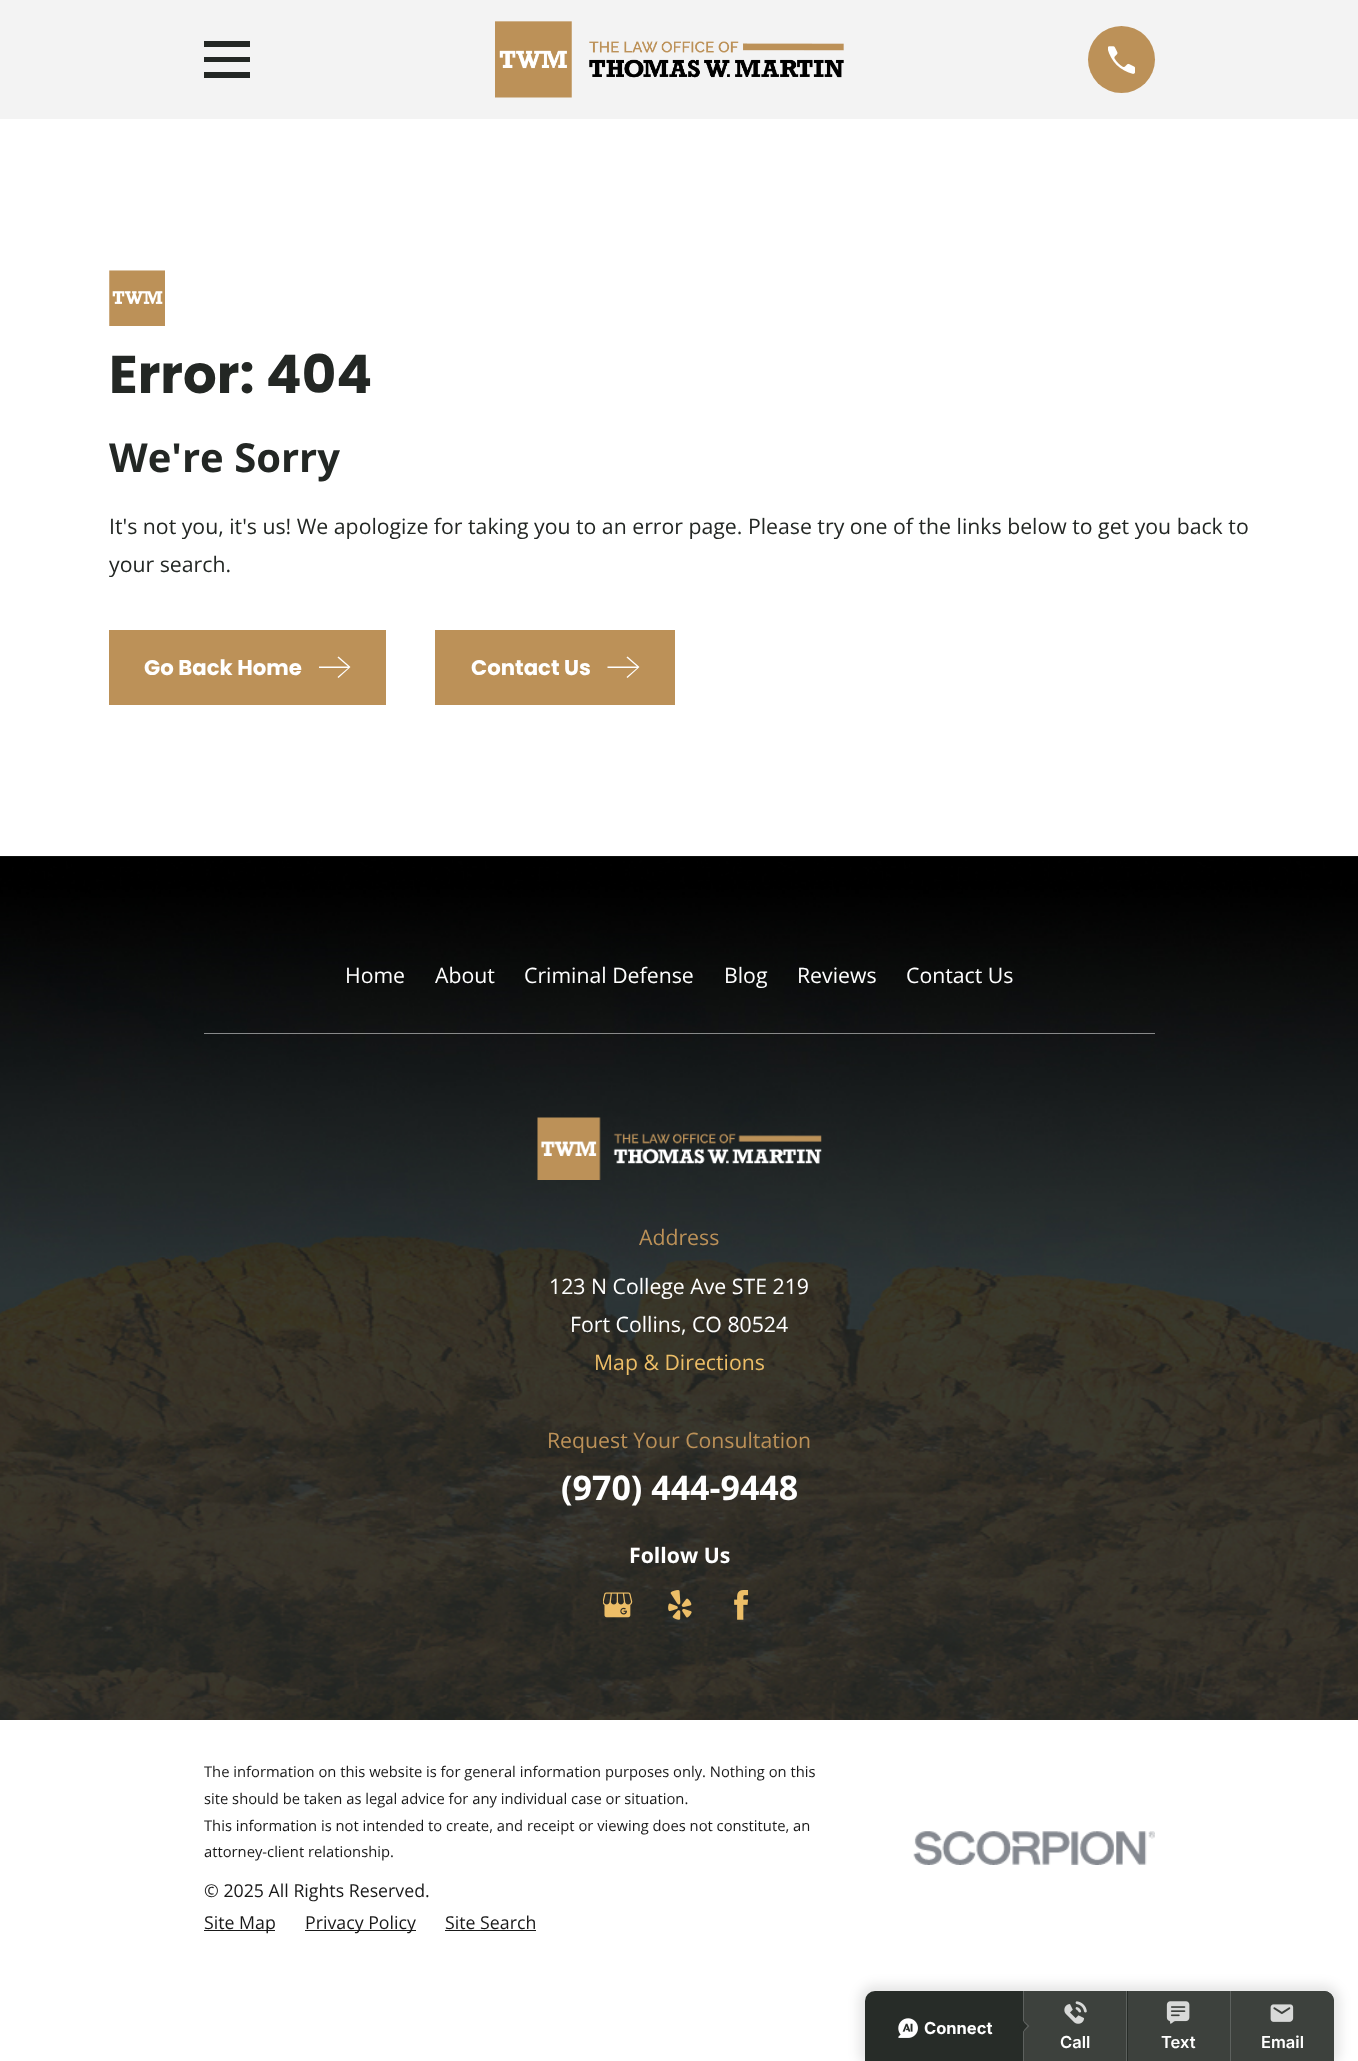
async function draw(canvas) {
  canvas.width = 1358
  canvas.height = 2061
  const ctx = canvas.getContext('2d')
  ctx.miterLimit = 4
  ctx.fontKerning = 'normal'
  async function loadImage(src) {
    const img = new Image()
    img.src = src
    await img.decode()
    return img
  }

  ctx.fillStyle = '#fff'
  ctx.fillRect(0, 0, 1358, 2061)
  ctx.fillStyle = '#f3f3f3'
  ctx.fillRect(0, 0, 1358, 119)
  ctx.save()
  ctx.beginPath()
  ctx.rect(204, 36, 46, 47)
  ctx.clip()
  ctx.fillStyle = '#232724'
  ctx.beginPath()
  ctx.moveTo(204, 41)
  ctx.lineTo(204, 47)
  ctx.lineTo(251, 47)
  ctx.lineTo(251, 41)
  ctx.closePath()
  ctx.moveTo(204, 57)
  ctx.lineTo(204, 62)
  ctx.lineTo(251, 62)
  ctx.lineTo(251, 57)
  ctx.closePath()
  ctx.moveTo(204, 72)
  ctx.lineTo(204, 78)
  ctx.lineTo(251, 78)
  ctx.lineTo(251, 72)
  ctx.closePath()
  ctx.fill()
  ctx.restore()
  ctx.drawImage(await loadImage('image0.png'), 495, 21, 349, 77)
  ctx.fillStyle = '#bc9158'
  ctx.beginPath()
  ctx.arc(1121.5, 59.5, 33.5, 0, 2 * Math.PI)
  ctx.fill()
  ctx.drawImage(await loadImage('image1.png'), 1108, 46, 27, 28)
  ctx.drawImage(await loadImage('image2.png'), 109, 270, 56, 56)
  ctx.font = 'bold 53px Poppins'
  ctx.fillStyle = '#232724'
  ctx.fillText('Error: 404', 109, 393)
  ctx.font = 'bold 40px Open Sans'
  ctx.fillText('We\'re Sorry', 109, 472)
  ctx.font = '21.25px Open Sans'
  ctx.fillText('It\'s not you, it\'s us! We apologize for taking you to an error page. Please try one of the links below to get you back to', 109, 534)
  ctx.fillText('your search.', 109, 572)
  ctx.fillStyle = '#bc9158'
  ctx.fillRect(109, 630, 277, 75)
  ctx.font = 'bold 21.25px Poppins'
  ctx.fillStyle = '#fff'
  ctx.fillText('Go Back Home', 144, 675)
  ctx.beginPath()
  ctx.moveTo(337.5, 677)
  ctx.lineTo(338.5, 678)
  ctx.lineTo(350.5, 667)
  ctx.lineTo(338.5, 656.5)
  ctx.lineTo(337.5, 657.5)
  ctx.lineTo(348, 666.5)
  ctx.lineTo(319, 666.5)
  ctx.lineTo(319, 668)
  ctx.lineTo(348, 668)
  ctx.closePath()
  ctx.fill()
  ctx.fillStyle = '#bc9158'
  ctx.fillRect(435, 630, 240, 75)
  ctx.fillStyle = '#fff'
  ctx.fillText('Contact Us', 471, 675)
  ctx.beginPath()
  ctx.moveTo(626.5, 677)
  ctx.lineTo(627.5, 678)
  ctx.lineTo(639.5, 667)
  ctx.lineTo(627.5, 656.5)
  ctx.lineTo(626.5, 657.5)
  ctx.lineTo(637, 666.5)
  ctx.lineTo(607.5, 666.5)
  ctx.lineTo(607.5, 668)
  ctx.lineTo(637, 668)
  ctx.closePath()
  ctx.fill()
  ctx.fillStyle = '#232724'
  ctx.fillRect(0, 856, 1358, 1)
  ctx.drawImage(await loadImage('image3.png'), 0, 856, 1358, 864)
  ctx.fillStyle = '#ffffff80'
  ctx.fillRect(204, 1033, 951, 1)
  ctx.font = '21.25px Open Sans'
  ctx.fillStyle = '#fff'
  ctx.fillText('Home', 345, 983)
  ctx.fillText('About', 435, 983)
  ctx.fillText('Criminal Defense', 524, 983)
  ctx.fillText('Blog', 724, 983)
  ctx.fillText('Reviews', 797, 983)
  ctx.fillText('Contact Us', 906, 983)
  ctx.drawImage(await loadImage('image4.png'), 537, 1117, 285, 63)
  ctx.fillStyle = '#bc9158'
  ctx.fillText('Address', 639, 1245)
  ctx.fillStyle = '#fff'
  ctx.fillText('123 N College Ave STE 219', 549, 1294)
  ctx.fillText('Fort Collins, CO 80524', 570, 1332)
  ctx.fillStyle = '#edbe67'
  ctx.fillText('Map & Directions', 594, 1370)
  ctx.fillStyle = '#bc9158'
  ctx.fillText('Request Your Consultation', 547, 1448)
  ctx.font = 'bold 34px Open Sans'
  ctx.fillStyle = '#fff'
  ctx.fillText('(970) 444-9448', 561, 1500)
  ctx.font = 'bold 21.25px Open Sans'
  ctx.fillText('Follow Us', 629, 1563)
  ctx.drawImage(await loadImage('image5.png'), 603, 1592, 30, 26)
  ctx.drawImage(await loadImage('image6.png'), 668, 1590, 24, 30)
  ctx.drawImage(await loadImage('image7.png'), 734, 1590, 15, 30)
  ctx.font = '14.75px Open Sans'
  ctx.fillStyle = '#191919'
  ctx.fillText('The information on this website is for general information purposes only. Nothing on this', 204, 1777)
  ctx.fillText('site should be taken as legal advice for any individual case or situation.', 204, 1804)
  ctx.fillText('This information is not intended to create, and receipt or viewing does not constitute, an', 204, 1831)
  ctx.fillText('attorney-client relationship.', 204, 1857)
  ctx.font = '17.75px Open Sans'
  ctx.fillText('© 2025 All Rights Reserved.', 204, 1897)
  ctx.fillRect(204, 1930, 71, 1)
  ctx.fillText('Site Map', 204, 1929)
  ctx.fillRect(305, 1930, 111, 1)
  ctx.fillText('Privacy Policy', 305, 1929)
  ctx.fillText('Site Search', 445, 1929)
  ctx.fillRect(445, 1930, 91, 1)
  ctx.drawImage(await loadImage('image8.png'), 913, 1831, 242, 34)
  ctx.fillStyle = '#0000001a'
  ctx.filter = 'blur(6px)'
  ctx.beginPath()
  ctx.roundRect(859, 1985, 481, 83, 16)
  ctx.fill()
  ctx.filter = 'none'
  ctx.fillStyle = '#272c28'
  ctx.beginPath()
  ctx.roundRect(865, 1991, 469, 70, [10, 10, 0, 0])
  ctx.fill()
  ctx.fillStyle = '#5d615e'
  ctx.fillRect(1023, 1991, 1, 70)
  ctx.drawImage(await loadImage('image9.png'), 898, 2018, 20, 20)
  ctx.font = 'bold 16.5px Inter'
  ctx.fillStyle = '#fff'
  ctx.fillText('Connect', 924, 2034)
  ctx.fillStyle = '#3d413d'
  ctx.fillRect(1024, 1991, 102, 70)
  ctx.fillStyle = '#272c28'
  ctx.beginPath()
  ctx.moveTo(1024, 2021)
  ctx.lineTo(1029.5, 2026)
  ctx.lineTo(1024, 2031.5)
  ctx.lineTo(1019, 2026)
  ctx.closePath()
  ctx.fill()
  ctx.fillStyle = '#ffffff40'
  ctx.beginPath()
  ctx.moveTo(1024, 2021)
  ctx.lineTo(1029.5, 2026)
  ctx.lineTo(1027.5, 2026)
  ctx.lineTo(1024, 2022.5)
  ctx.closePath()
  ctx.moveTo(1029.5, 2026)
  ctx.lineTo(1024, 2031.5)
  ctx.lineTo(1024, 2030)
  ctx.lineTo(1027.5, 2026)
  ctx.closePath()
  ctx.fill()
  ctx.fillStyle = '#5d615e'
  ctx.fillRect(1126, 1991, 1, 70)
  ctx.drawImage(await loadImage('image10.png'), 1064, 2001, 23, 23)
  ctx.font = '600 16.5px Inter'
  ctx.fillStyle = '#fff'
  ctx.fillText('Call', 1060, 2048)
  ctx.fillStyle = '#5d615e'
  ctx.fillRect(1230, 1991, 1, 70)
  ctx.fillStyle = '#3d413d'
  ctx.fillRect(1128, 1991, 102, 70)
  ctx.drawImage(await loadImage('image11.png'), 1166, 2001, 24, 23)
  ctx.fillStyle = '#fff'
  ctx.fillText('Text', 1161, 2048)
  ctx.fillStyle = '#3d413d'
  ctx.beginPath()
  ctx.roundRect(1231, 1991, 103, 70, [0, 10, 0, 0])
  ctx.fill()
  ctx.drawImage(await loadImage('image12.png'), 1270, 2004, 24, 18)
  ctx.fillStyle = '#fff'
  ctx.fillText('Email', 1261, 2048)
}

draw(document.querySelector('canvas'))
